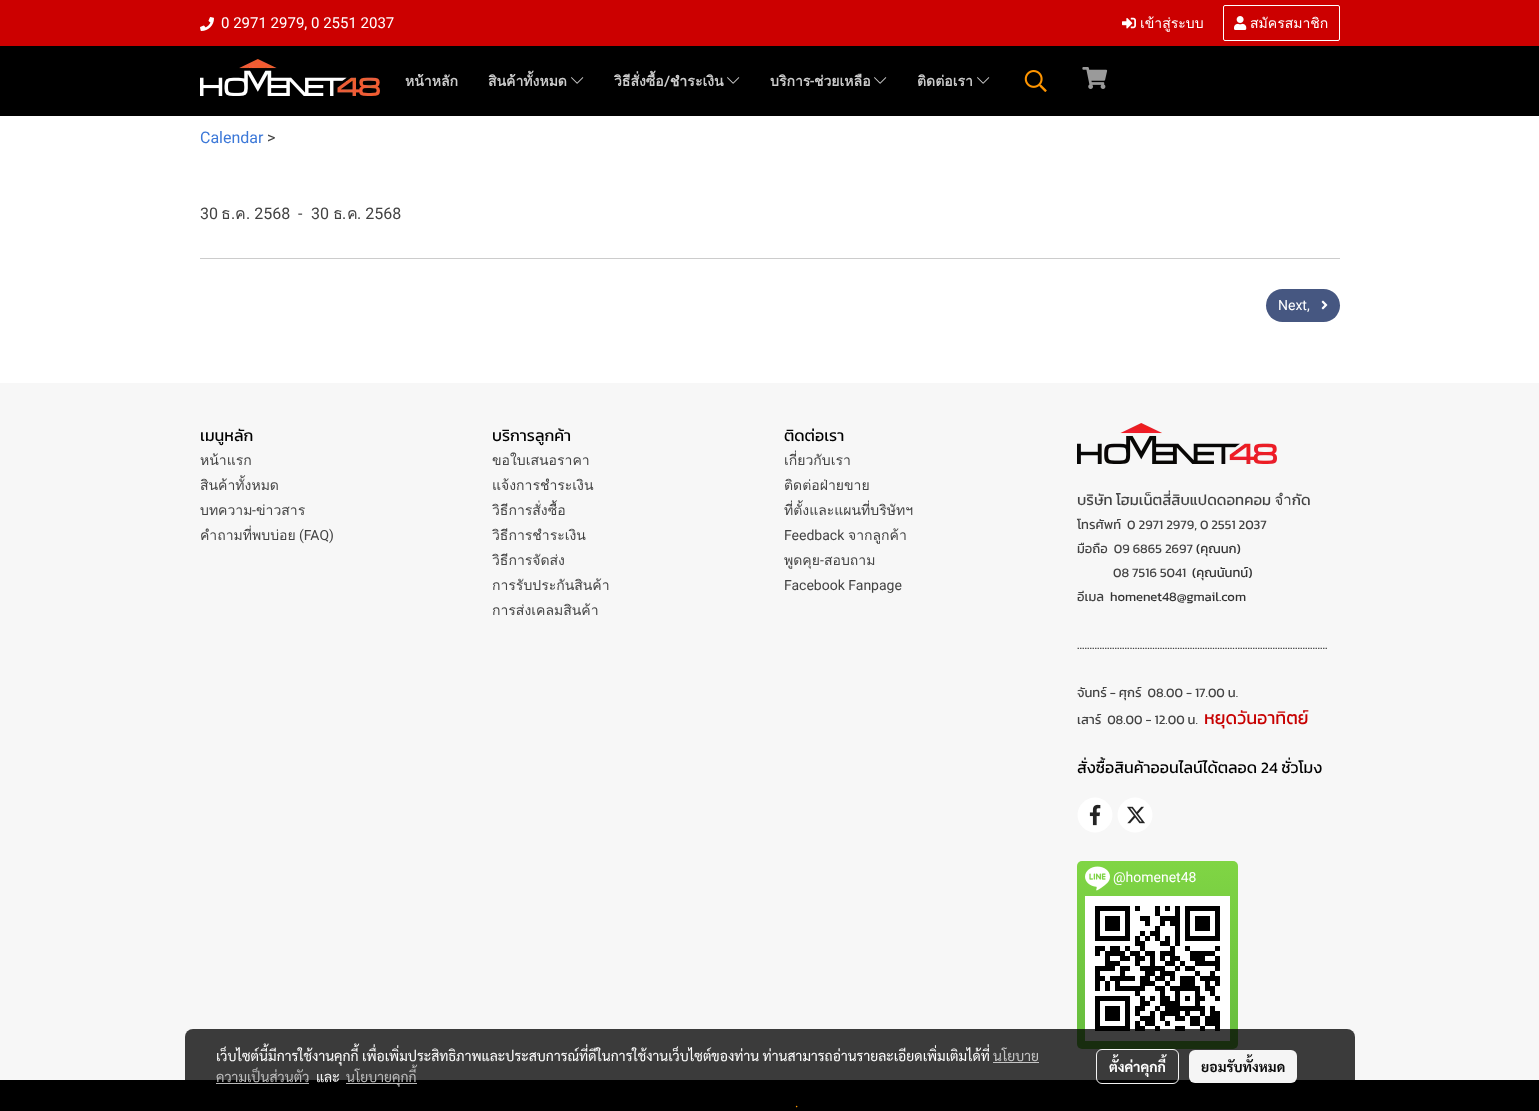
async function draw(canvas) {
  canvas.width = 1539
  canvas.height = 1111
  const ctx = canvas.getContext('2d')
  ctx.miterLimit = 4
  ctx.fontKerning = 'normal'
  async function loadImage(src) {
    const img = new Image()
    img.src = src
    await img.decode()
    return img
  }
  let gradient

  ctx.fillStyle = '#fff'
  ctx.fillRect(0, 0, 1539, 1111)
  ctx.fillStyle = '#000'
  ctx.fillRect(0, 46, 1539, 70)
  ctx.fillStyle = '#c00'
  ctx.fillRect(0, 0, 1539, 46)
  ctx.drawImage(await loadImage('image0.png'), 200, 17, 14, 14)
  ctx.font = '15px Roboto'
  ctx.fillStyle = '#fff'
  ctx.fillText('0 2971 2979, 0 2551 2037', 221, 28)
  ctx.drawImage(await loadImage('image1.png'), 1122, 17, 14, 12)
  ctx.font = '14px Loma'
  ctx.fillText('เข้าสู่ระบบ', 1140, 28)
  ctx.beginPath()
  ctx.roundRect(1223.5, 5.5, 116, 35, 1.5)
  ctx.strokeStyle = '#fff'
  ctx.stroke()
  ctx.drawImage(await loadImage('image2.png'), 1234, 16, 13, 14)
  ctx.fillText('สมัครสมาชิก', 1250, 28)
  ctx.drawImage(await loadImage('image3.png'), 200, 59, 180, 37)
  ctx.font = 'bold 14px Loma'
  ctx.fillStyle = '#ccc'
  ctx.fillText('หน้าหลัก', 405, 86)
  ctx.fillText('สินค้าทั้งหมด', 488, 86)
  ctx.drawImage(await loadImage('image4.png'), 571, 77, 13, 7)
  ctx.fillText('วิธีสั่งซื้อ', 614, 86)
  ctx.font = 'bold 14px Roboto'
  ctx.fillText('/', 664, 86)
  ctx.font = 'bold 14px Loma'
  ctx.fillText('ชำระเงิน', 670, 86)
  ctx.drawImage(await loadImage('image4.png'), 727, 77, 13, 7)
  ctx.fillText('บริการ', 770, 86)
  ctx.font = 'bold 14px Roboto'
  ctx.fillText('-', 810, 86)
  ctx.font = 'bold 14px Loma'
  ctx.fillText('ช่วยเหลือ', 814, 86)
  ctx.drawImage(await loadImage('image4.png'), 874, 77, 13, 7)
  ctx.fillText('ติดต่อเรา', 917, 86)
  ctx.drawImage(await loadImage('image4.png'), 977, 77, 13, 7)
  ctx.drawImage(await loadImage('image5.png'), 1024, 70, 23, 22)
  ctx.drawImage(await loadImage('image6.png'), 1082, 67, 26, 22)
  ctx.font = '16px Roboto'
  ctx.fillStyle = '#3c78d8'
  ctx.fillText('Calendar', 200, 143)
  ctx.fillStyle = '#434343'
  ctx.fillText('>', 267, 143)
  ctx.fillText('30', 200, 219)
  ctx.font = '16px Loma'
  ctx.fillText('ธ', 221, 219)
  ctx.fillText('ค', 235, 219)
  ctx.font = '16px Roboto'
  ctx.fillText('. 2568', 246, 219)
  ctx.fillText('-', 298, 219)
  ctx.fillText('30', 311, 219)
  ctx.font = '16px Loma'
  ctx.fillText('ธ', 333, 219)
  ctx.fillText('ค', 347, 219)
  ctx.font = '16px Roboto'
  ctx.fillText('. 2568', 357, 219)
  ctx.fillText('.', 231, 219)
  ctx.fillText('.', 342, 219)
  ctx.fillStyle = '#ccc'
  ctx.fillRect(200, 258, 1140, 1)
  ctx.fillStyle = '#465781'
  ctx.beginPath()
  ctx.roundRect(1266, 289, 74, 33, 16.5)
  ctx.fill()
  ctx.font = '14px Roboto'
  ctx.fillStyle = '#fff'
  ctx.fillText('Next,', 1278, 310)
  ctx.drawImage(await loadImage('image7.png'), 1321, 300, 7, 10)
  ctx.fillStyle = '#f7f7f7'
  ctx.fillRect(0, 383, 1539, 697)
  ctx.font = '16px Kanit'
  ctx.fillStyle = '#000'
  ctx.fillText('เมนูหลัก', 200, 441)
  ctx.font = '14px Loma'
  ctx.fillStyle = '#434343'
  ctx.fillText('หน้าแรก', 200, 465)
  ctx.fillText('สินค้าทั้งหมด', 200, 490)
  ctx.fillText('บทความ', 200, 515)
  ctx.font = '14px Roboto'
  ctx.fillText('-', 252, 515)
  ctx.font = '14px Loma'
  ctx.fillText('ข่าวสาร', 256, 515)
  ctx.fillText('คำถามที่พบบ่อย', 200, 540)
  ctx.font = '14px Roboto'
  ctx.fillText('(FAQ)', 299, 540)
  ctx.font = '16px Kanit'
  ctx.fillStyle = '#000'
  ctx.fillText('บริการลูกค้า', 492, 441)
  ctx.font = '14px Loma'
  ctx.fillStyle = '#434343'
  ctx.fillText('ขอใบเสนอราคา', 492, 465)
  ctx.fillText('แจ้งการชำระเงิน', 492, 490)
  ctx.fillText('วิธีการสั่งซื้อ', 492, 515)
  ctx.fillText('วิธีการชำระเงิน', 492, 540)
  ctx.fillText('วิธีการจัดส่ง', 492, 565)
  ctx.fillText('การรับประกันสินค้า', 492, 590)
  ctx.fillText('การส่งเคลมสินค้า', 492, 615)
  ctx.font = '16px Kanit'
  ctx.fillStyle = '#000'
  ctx.fillText('ติดต่อเรา', 784, 441)
  ctx.font = '14px Loma'
  ctx.fillStyle = '#434343'
  ctx.fillText('เกี่ยวกับเรา', 784, 465)
  ctx.fillText('ติดต่อฝ่ายขาย', 784, 490)
  ctx.fillText('ที่ตั้งและแผนที่บริษัทฯ', 784, 515)
  ctx.font = '14px Roboto'
  ctx.fillText('Feedback', 784, 540)
  ctx.font = '14px Loma'
  ctx.fillText('จากลูกค้า', 848, 540)
  ctx.fillText('พูดคุย', 784, 565)
  ctx.font = '14px Roboto'
  ctx.fillText('-', 820, 565)
  ctx.font = '14px Loma'
  ctx.fillText('สอบถาม', 824, 565)
  ctx.font = '14px Roboto'
  ctx.fillText('Facebook Fanpage', 784, 590)
  ctx.drawImage(await loadImage('image8.png'), 1077, 423, 200, 41)
  ctx.font = '15px Kanit'
  ctx.fillText('บริษัท โฮมเน็ตสี่สิบแปดดอทคอม จำกัด', 1077, 505)
  ctx.font = '13px Kanit'
  ctx.fillText('โทรศัพท์  0 2971 2979, 0 2551 2037', 1077, 529)
  ctx.fillText('มือถือ  09 6865 2697', 1077, 553)
  ctx.fillStyle = '#333'
  ctx.fillText('(คุณนก)', 1196, 553)
  ctx.fillStyle = '#434343'
  ctx.fillText('08 7516 5041', 1113, 577)
  ctx.fillStyle = '#333'
  ctx.fillText('(คุณนันทน์)', 1192, 577)
  ctx.fillStyle = '#434343'
  ctx.fillText('อีเมล', 1077, 601)
  ctx.fillStyle = '#333'
  ctx.fillText('homenet48@gmail.com', 1110, 601)
  ctx.font = '14px Kanit'
  ctx.fillStyle = '#434343'
  ctx.fillText('....................................................................................................', 1077, 649)
  ctx.font = '13px Kanit'
  ctx.fillText('จันทร์ - ศุกร์  08.00 - 17.00 น.', 1077, 697)
  ctx.fillText('เสาร์  08.00 - 12.00 น.', 1077, 724)
  ctx.font = '18px Kanit'
  ctx.fillStyle = '#c70000'
  ctx.fillText('หยุดวันอาทิตย์', 1204, 724)
  ctx.font = '16px Kanit'
  ctx.fillStyle = '#000'
  ctx.fillText('สั่งซื้อสินค้าออนไลน์ได้ตลอด 24 ชั่วโมง', 1077, 773)
  ctx.fillStyle = '#fff'
  ctx.beginPath()
  ctx.moveTo(1095, 797.5)
  ctx.bezierCurveTo(1085.5, 797.5, 1077.5, 805.5, 1077.5, 815)
  ctx.bezierCurveTo(1077.5, 824.5, 1085.5, 832.5, 1095, 832.5)
  ctx.bezierCurveTo(1104.5, 832.5, 1112.5, 824.5, 1112.5, 815)
  ctx.bezierCurveTo(1112.5, 805.5, 1104.5, 797.5, 1095, 797.5)
  ctx.closePath()
  ctx.fill()
  ctx.drawImage(await loadImage('image9.png'), 1089, 804, 12, 22)
  ctx.beginPath()
  ctx.moveTo(1135, 797.5)
  ctx.bezierCurveTo(1125.5, 797.5, 1117.5, 805.5, 1117.5, 815)
  ctx.bezierCurveTo(1117.5, 824.5, 1125.5, 832.5, 1135, 832.5)
  ctx.bezierCurveTo(1144.5, 832.5, 1152.5, 824.5, 1152.5, 815)
  ctx.bezierCurveTo(1152.5, 805.5, 1144.5, 797.5, 1135, 797.5)
  ctx.closePath()
  ctx.fill()
  ctx.drawImage(await loadImage('image10.png'), 1127, 806, 18, 18)
  gradient = ctx.createLinearGradient(1158, 861, 1158, 1049)
  gradient.addColorStop(0, '#80d544')
  gradient.addColorStop(1, '#65bc3e')
  ctx.fillStyle = gradient
  ctx.beginPath()
  ctx.roundRect(1077, 861, 161, 188, 5)
  ctx.fill()
  ctx.drawImage(await loadImage('image11.png'), 1085, 866, 25, 25)
  ctx.font = '14px Roboto'
  ctx.fillStyle = '#fff'
  ctx.fillText('@homenet48', 1113, 882)
  ctx.drawImage(await loadImage('image12.png'), 1085, 896, 145, 145)
  ctx.fillStyle = '#000'
  ctx.fillRect(0, 1080, 1539, 31)
  ctx.font = '13px Liberation Serif'
  ctx.fillStyle = '#f90'
  ctx.fillText('.', 795, 1107)
  ctx.fillStyle = '#000000c2'
  ctx.beginPath()
  ctx.roundRect(185, 1029, 1170, 74, 8)
  ctx.fill()
  ctx.font = '14px Sarabun'
  ctx.fillStyle = '#fff'
  ctx.fillText('เว็บไซต์นี้มีการใช้งานคุกกี้ เพื่อเพิ่มประสิทธิภาพและประสบการณ์ที่ดีในการใช้งานเว็บไซต์ของท่าน ท่านสามารถอ่านรายละเอียดเพิ่มเติมได้ที่', 216, 1061)
  ctx.fillStyle = '#c5c5c5'
  ctx.fillText('นโยบาย', 993, 1061)
  ctx.fillRect(993, 1062, 46, 1)
  ctx.fillStyle = '#bbb'
  ctx.fillText('ความเป็นส่วนตัว', 216, 1082)
  ctx.fillStyle = '#b8b8b8'
  ctx.fillRect(216, 1083, 93, 1)
  ctx.fillStyle = '#f4f4f4'
  ctx.fillText('และ', 316, 1082)
  ctx.fillStyle = '#b8b8b8'
  ctx.fillRect(346, 1083, 71, 1)
  ctx.fillStyle = '#bbb'
  ctx.fillText('นโยบายคุกกี้', 346, 1082)
  ctx.beginPath()
  ctx.roundRect(1096.5, 1049.5, 82, 34, 5.5)
  ctx.strokeStyle = '#fffffff2'
  ctx.stroke()
  ctx.font = 'bold 14px Sarabun'
  ctx.fillStyle = '#fff'
  ctx.fillText('ตั้งค่าคุกกี้', 1109, 1072)
  ctx.fillStyle = '#fffffff2'
  ctx.beginPath()
  ctx.roundRect(1189, 1050, 108, 33, 6)
  ctx.fill()
  ctx.fillStyle = '#0c0c0c'
  ctx.fillText('ยอมรับทั้งหมด', 1201, 1072)
}

draw(document.querySelector('canvas'))
